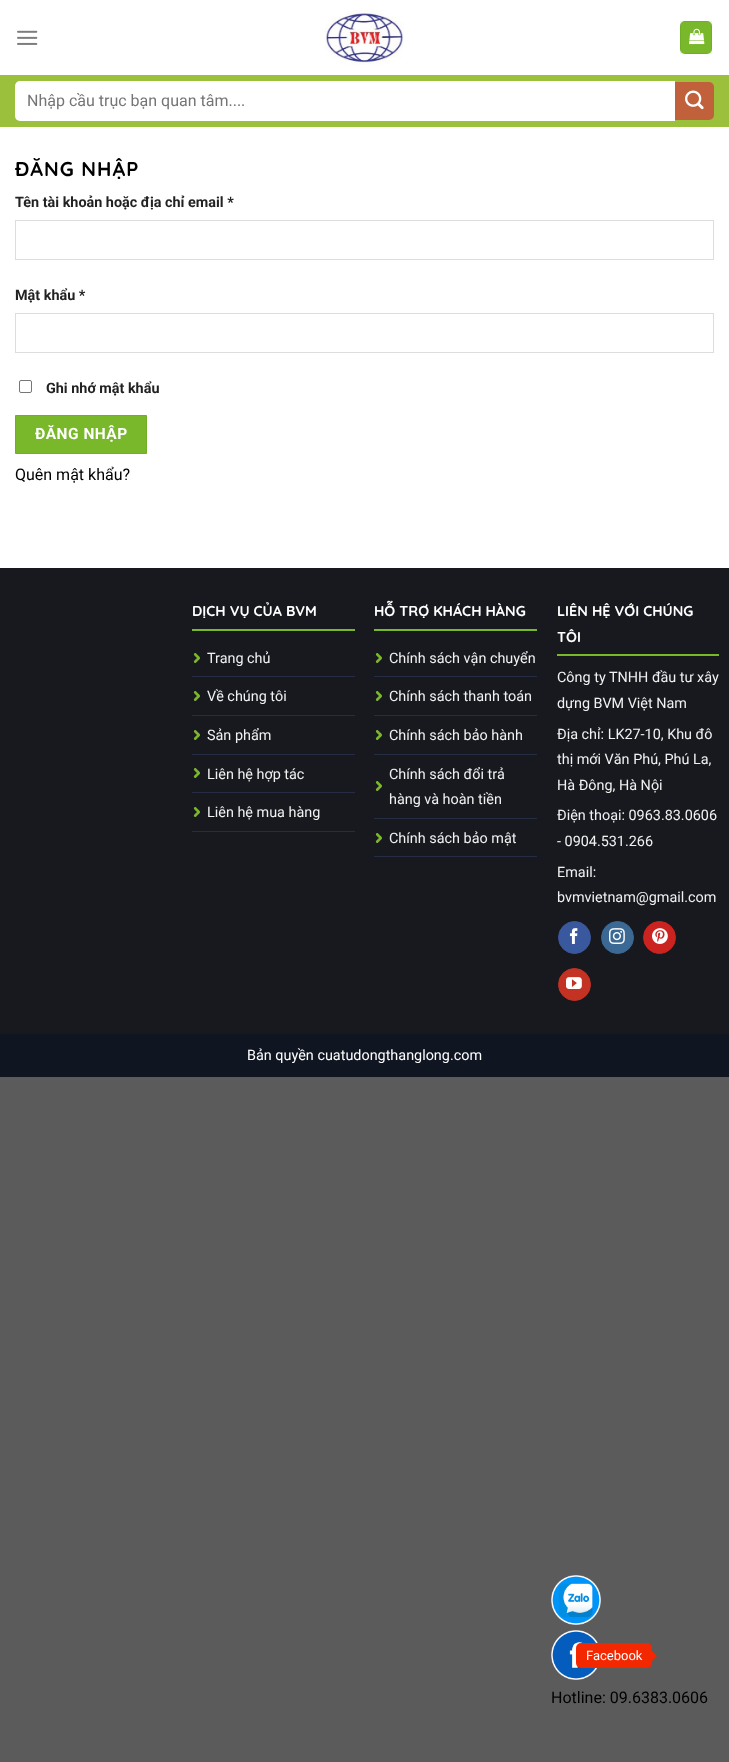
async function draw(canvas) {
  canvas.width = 729
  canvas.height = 1762
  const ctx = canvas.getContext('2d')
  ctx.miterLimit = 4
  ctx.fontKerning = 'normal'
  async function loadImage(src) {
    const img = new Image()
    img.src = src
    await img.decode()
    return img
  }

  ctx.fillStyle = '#5b5b5b'
  ctx.fillRect(0, 0, 729, 1762)
  ctx.fillStyle = '#fff'
  ctx.fillRect(0, 0, 729, 568)
  ctx.drawImage(await loadImage('image0.png'), 17, 30, 21, 15)
  ctx.drawImage(await loadImage('image1.png'), 325, 10, 79, 55)
  ctx.fillStyle = '#78b82a'
  ctx.beginPath()
  ctx.roundRect(680, 21, 32, 33, 5)
  ctx.fill()
  ctx.strokeStyle = '#0000000d'
  ctx.strokeRect(680.5, 21.5, 31, 32)
  ctx.drawImage(await loadImage('image2.png'), 689, 28, 16, 17)
  ctx.fillStyle = '#9bc03c'
  ctx.fillRect(0, 75, 729, 52)
  ctx.fillStyle = '#fff'
  ctx.beginPath()
  ctx.roundRect(15, 81, 660, 40, [5, 0, 0, 5])
  ctx.fill()
  ctx.font = '16px Roboto'
  ctx.fillStyle = '#757575'
  ctx.fillText('Nhập cầu trục bạn quan tâm....', 27, 106)
  ctx.fillStyle = '#c0613c'
  ctx.beginPath()
  ctx.roundRect(675, 82, 39, 38, [0, 5, 5, 0])
  ctx.fill()
  ctx.drawImage(await loadImage('image3.png'), 685, 90, 19, 20)
  ctx.letterSpacing = '1px'
  ctx.font = '300 20px Quicksand'
  ctx.fillStyle = '#000'
  ctx.fillText('ĐĂNG NHẬP', 15, 176)
  ctx.letterSpacing = '0px'
  ctx.font = 'bold 14.4px Roboto'
  ctx.fillStyle = '#222'
  ctx.fillText('Tên tài khoản hoặc địa chỉ email *', 15, 207)
  ctx.strokeStyle = '#ddd'
  ctx.strokeRect(15.5, 220.5, 698, 39)
  ctx.fillText('Mật khẩu *', 15, 300)
  ctx.strokeRect(15.5, 313.5, 698, 39)
  ctx.beginPath()
  ctx.roundRect(19.5, 380.5, 12, 12, 1.5)
  ctx.strokeStyle = '#767676'
  ctx.stroke()
  ctx.fillText('Ghi nhớ mật khẩu', 46, 393)
  ctx.fillStyle = '#78b82a'
  ctx.beginPath()
  ctx.rect(15.5, 415.5, 131, 38)
  ctx.fill()
  ctx.strokeStyle = '#72af28'
  ctx.stroke()
  ctx.letterSpacing = '0.5px'
  ctx.font = 'bold 15.5px Roboto'
  ctx.fillStyle = '#fff'
  ctx.fillText('ĐĂNG NHẬP', 35, 439)
  ctx.letterSpacing = '0px'
  ctx.font = '16px Roboto'
  ctx.fillStyle = '#000'
  ctx.fillText('Quên mật khẩu?', 15, 480)
  ctx.fillStyle = '#17191f'
  ctx.fillRect(0, 568, 729, 466)
  ctx.fillStyle = '#78b82a'
  ctx.fillRect(192, 629, 163, 2)
  ctx.font = '300 14.4px Quicksand'
  ctx.fillStyle = '#fff'
  ctx.fillText('DỊCH VỤ CỦA BVM', 192, 616)
  ctx.drawImage(await loadImage('image4.png'), 193, 653, 7, 10)
  ctx.fillStyle = '#262c44'
  ctx.fillRect(192, 676, 163, 1)
  ctx.font = '14.4px Roboto'
  ctx.fillStyle = '#f1f1f1'
  ctx.fillText('Trang chủ', 207, 663)
  ctx.drawImage(await loadImage('image4.png'), 193, 691, 7, 10)
  ctx.fillStyle = '#262c44'
  ctx.fillRect(192, 715, 163, 1)
  ctx.fillStyle = '#f1f1f1'
  ctx.fillText('Về chúng tôi', 207, 701)
  ctx.drawImage(await loadImage('image4.png'), 193, 730, 7, 10)
  ctx.fillStyle = '#262c44'
  ctx.fillRect(192, 754, 163, 1)
  ctx.fillStyle = '#f1f1f1'
  ctx.fillText('Sản phẩm', 207, 740)
  ctx.drawImage(await loadImage('image4.png'), 193, 768, 7, 10)
  ctx.fillStyle = '#262c44'
  ctx.fillRect(192, 792, 163, 1)
  ctx.fillStyle = '#f1f1f1'
  ctx.fillText('Liên hệ hợp tác', 207, 779)
  ctx.drawImage(await loadImage('image4.png'), 193, 807, 7, 10)
  ctx.fillStyle = '#262c44'
  ctx.fillRect(192, 831, 163, 1)
  ctx.fillStyle = '#f1f1f1'
  ctx.fillText('Liên hệ mua hàng', 207, 817)
  ctx.fillStyle = '#78b82a'
  ctx.fillRect(374, 629, 163, 2)
  ctx.font = '300 14.4px Quicksand'
  ctx.fillStyle = '#fff'
  ctx.fillText('HỖ TRỢ KHÁCH HÀNG', 374, 616)
  ctx.drawImage(await loadImage('image5.png'), 375, 653, 7, 10)
  ctx.fillStyle = '#262c44'
  ctx.fillRect(374, 676, 163, 1)
  ctx.font = '14.4px Roboto'
  ctx.fillStyle = '#f1f1f1'
  ctx.fillText('Chính sách vận chuyển', 389, 663)
  ctx.drawImage(await loadImage('image5.png'), 375, 691, 7, 10)
  ctx.fillStyle = '#262c44'
  ctx.fillRect(374, 715, 163, 1)
  ctx.fillStyle = '#f1f1f1'
  ctx.fillText('Chính sách thanh toán', 389, 701)
  ctx.drawImage(await loadImage('image5.png'), 375, 730, 7, 10)
  ctx.fillStyle = '#262c44'
  ctx.fillRect(374, 754, 163, 1)
  ctx.fillStyle = '#f1f1f1'
  ctx.fillText('Chính sách bảo hành', 389, 740)
  ctx.drawImage(await loadImage('image5.png'), 375, 781, 7, 10)
  ctx.fillStyle = '#262c44'
  ctx.fillRect(374, 818, 163, 1)
  ctx.fillStyle = '#f1f1f1'
  ctx.fillText('Chính sách đổi trả', 389, 779)
  ctx.fillText('hàng và hoàn tiền', 389, 804)
  ctx.drawImage(await loadImage('image5.png'), 375, 833, 7, 10)
  ctx.fillStyle = '#262c44'
  ctx.fillRect(374, 856, 163, 1)
  ctx.fillStyle = '#f1f1f1'
  ctx.fillText('Chính sách bảo mật', 389, 843)
  ctx.fillStyle = '#78b82a'
  ctx.fillRect(557, 654, 162, 2)
  ctx.font = '300 14.4px Quicksand'
  ctx.fillStyle = '#fff'
  ctx.fillText('LIÊN HỆ VỚI CHÚNG', 557, 616)
  ctx.fillText('TÔI', 557, 642)
  ctx.font = '14.4px Roboto'
  ctx.fillStyle = '#f1f1f1'
  ctx.fillText('Công ty TNHH đầu tư xây', 557, 682)
  ctx.fillText('dựng BVM Việt Nam', 557, 708)
  ctx.fillText('Địa chỉ: LK27-10, Khu đô', 557, 739)
  ctx.fillText('thị mới Văn Phú, Phú La,', 557, 764)
  ctx.fillText('Hà Đông, Hà Nội', 557, 790)
  ctx.fillText('Điện thoại: 0963.83.0606', 557, 820)
  ctx.fillText('- 0904.531.266', 557, 846)
  ctx.fillText('Email:', 557, 877)
  ctx.fillText('bvmvietnam@gmail.com', 557, 902)
  ctx.fillStyle = '#3a589d'
  ctx.beginPath()
  ctx.arc(574.5, 937.5, 16, 0, 2 * Math.PI)
  ctx.fill()
  ctx.strokeStyle = '#3a589d'
  ctx.stroke()
  ctx.drawImage(await loadImage('image6.png'), 569, 928, 9, 16)
  ctx.fillStyle = '#3b6994'
  ctx.beginPath()
  ctx.arc(617.5, 937.5, 16, 0, 2 * Math.PI)
  ctx.fill()
  ctx.strokeStyle = '#3b6994'
  ctx.stroke()
  ctx.drawImage(await loadImage('image7.png'), 609, 928, 16, 16)
  ctx.fillStyle = '#cb2320'
  ctx.beginPath()
  ctx.arc(659.5, 937.5, 16, 0, 2 * Math.PI)
  ctx.fill()
  ctx.strokeStyle = '#cb2320'
  ctx.stroke()
  ctx.drawImage(await loadImage('image8.png'), 652, 928, 16, 16)
  ctx.fillStyle = '#c33223'
  ctx.beginPath()
  ctx.arc(574.5, 984.5, 16, 0, 2 * Math.PI)
  ctx.fill()
  ctx.strokeStyle = '#c33223'
  ctx.stroke()
  ctx.drawImage(await loadImage('image9.png'), 566, 977, 16, 12)
  ctx.fillStyle = '#101522'
  ctx.fillRect(0, 1034, 729, 43)
  ctx.fillStyle = '#fff'
  ctx.fillText('Bản quyền cuatudongthanglong.com', 247, 1060)
  ctx.drawImage(await loadImage('image10.png'), 551, 1575, 50, 50)
  ctx.drawImage(await loadImage('image11.png'), 551, 1630, 47, 50)
  ctx.fillStyle = '#f32700'
  ctx.beginPath()
  ctx.roundRect(576, 1643, 76, 25, 5)
  ctx.fill()
  ctx.font = '13px Roboto'
  ctx.fillStyle = '#fff'
  ctx.fillText('Facebook', 586, 1660)
  ctx.fillStyle = '#f32700'
  ctx.beginPath()
  ctx.moveTo(652, 1661)
  ctx.lineTo(652, 1651)
  ctx.lineTo(657, 1656)
  ctx.closePath()
  ctx.fill()
  ctx.font = '16px Roboto'
  ctx.fillStyle = '#000'
  ctx.fillText('Hotline: 09.6383.0606', 551, 1703)
}

draw(document.querySelector('canvas'))
